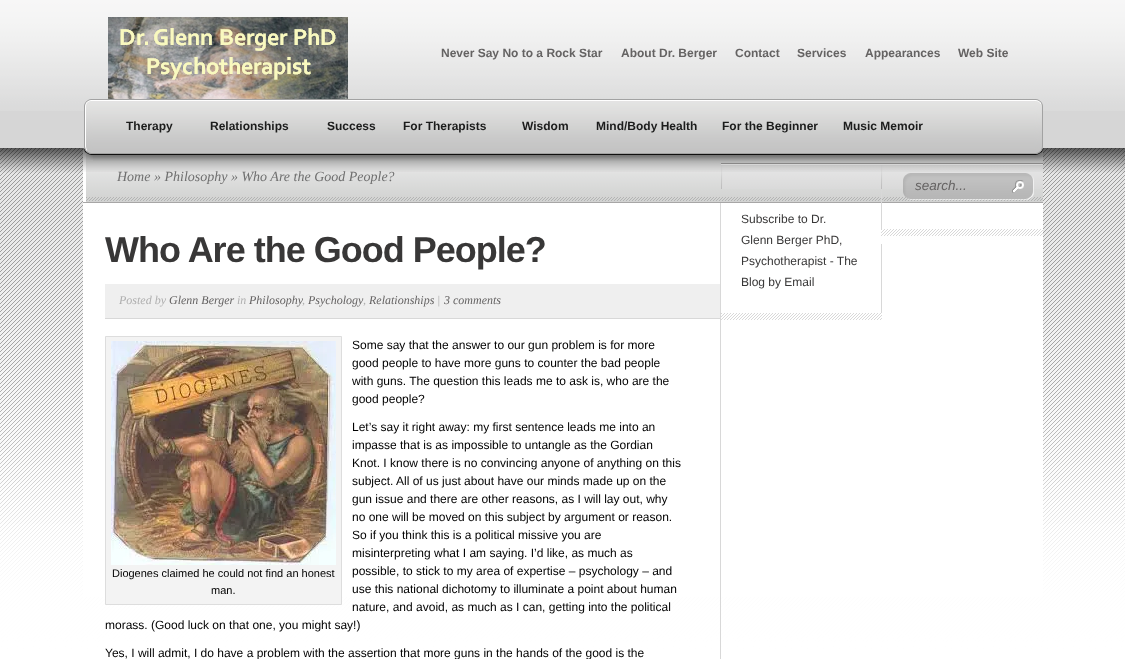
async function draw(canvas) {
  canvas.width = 1125
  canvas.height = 659
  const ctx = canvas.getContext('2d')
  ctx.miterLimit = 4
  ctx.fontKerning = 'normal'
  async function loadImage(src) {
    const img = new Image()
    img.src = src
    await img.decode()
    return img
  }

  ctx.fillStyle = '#d6d6d6'
  ctx.fillRect(0, 0, 1125, 659)
  ctx.drawImage(await loadImage('image0.png'), 0, 0, 1125, 111)
  ctx.drawImage(await loadImage('image1.png'), 108, 17, 240, 82)
  ctx.font = 'bold 12px Liberation Sans'
  ctx.fillStyle = '#656363'
  ctx.fillText('Never Say No to a Rock Star', 441, 57)
  ctx.fillText('About Dr. Berger', 621, 57)
  ctx.fillText('Contact', 735, 57)
  ctx.fillText('Services', 797, 57)
  ctx.fillText('Appearances', 865, 57)
  ctx.fillText('Web Site', 958, 57)
  ctx.drawImage(await loadImage('image7.png'), 0, 148, 1125, 511)
  ctx.drawImage(await loadImage('image8.png'), 0, 148, 1125, 25)
  ctx.drawImage(await loadImage('image9.png'), 83, 148, 960, 55)
  ctx.fillStyle = '#fff'
  ctx.fillRect(83, 148, 3, 54)
  ctx.font = 'italic 14px Liberation Serif'
  ctx.fillStyle = '#6f6f6f'
  ctx.fillText('Home » Philosophy » Who Are the Good People?', 117, 181)
  ctx.drawImage(await loadImage('image13.png'), 881, 163, 2, 26)
  ctx.drawImage(await loadImage('image14.png'), 883, 163, 160, 26)
  ctx.drawImage(await loadImage('image13.png'), 721, 163, 2, 26)
  ctx.drawImage(await loadImage('image16.png'), 723, 163, 158, 26)
  ctx.drawImage(await loadImage('image10.png'), 83, 148, 960, 24)
  ctx.drawImage(await loadImage('image2.png'), 83, 99, 10, 61)
  ctx.drawImage(await loadImage('image3.png'), 93, 99, 941, 62)
  ctx.font = 'bold 12px Liberation Sans'
  ctx.fillStyle = '#1c1c1c'
  ctx.fillText('Therapy', 126, 130)
  ctx.fillText('Relationships', 210, 130)
  ctx.fillText('Success', 327, 130)
  ctx.fillText('For Therapists', 403, 130)
  ctx.fillText('Wisdom', 522, 130)
  ctx.fillText('Mind/Body Health', 596, 130)
  ctx.fillText('For the Beginner', 722, 130)
  ctx.fillText('Music Memoir', 843, 130)
  ctx.drawImage(await loadImage('image4.png'), 903, 173, 131, 27)
  ctx.font = 'italic 13.5px Liberation Sans'
  ctx.fillStyle = '#656363'
  ctx.fillText('search...', 915, 190)
  ctx.drawImage(await loadImage('image5.png'), 1012, 180, 12, 13)
  ctx.drawImage(await loadImage('image6.png'), 1034, 99, 12, 62)
  ctx.fillStyle = '#fff'
  ctx.fillRect(83, 203, 960, 394)
  ctx.fillStyle = '#d8d8d8'
  ctx.fillRect(720, 203, 1, 456)
  ctx.letterSpacing = '-1px'
  ctx.font = 'bold 36px Liberation Sans'
  ctx.fillStyle = '#383737'
  ctx.fillText('Who Are the Good People?', 105, 262)
  ctx.fillStyle = '#efefef'
  ctx.fillRect(105, 284, 615, 34)
  ctx.fillStyle = '#d8d8d8'
  ctx.fillRect(105, 318, 615, 1)
  ctx.letterSpacing = '0px'
  ctx.font = 'italic 12px Liberation Serif'
  ctx.fillStyle = '#afafaf'
  ctx.fillText('Posted by', 119, 304)
  ctx.fillStyle = '#656363'
  ctx.fillText('Glenn Berger', 169, 304)
  ctx.fillStyle = '#afafaf'
  ctx.fillText('in', 237, 304)
  ctx.fillStyle = '#656363'
  ctx.fillText('Philosophy', 249, 304)
  ctx.fillText('Psychology', 308, 304)
  ctx.fillText('Relationships', 369, 304)
  ctx.fillStyle = '#afafaf'
  ctx.fillText('|', 437, 304)
  ctx.fillStyle = '#656363'
  ctx.fillText('3 comments', 444, 304)
  ctx.fillStyle = '#afafaf'
  ctx.fillText(',', 302, 304)
  ctx.fillText(',', 363, 304)
  ctx.font = '12px Liberation Sans'
  ctx.fillStyle = '#000'
  ctx.fillText('Some say that the answer to our gun problem is for more', 352, 349)
  ctx.fillText('good people to have more guns to counter the bad people', 352, 367)
  ctx.fillText('with guns. The question this leads me to ask is, who are the', 352, 385)
  ctx.fillText('good people?', 352, 403)
  ctx.fillText('Let’s say it right away: my first sentence leads me into an', 352, 431)
  ctx.fillText('impasse that is as impossible to untangle as the Gordian', 352, 449)
  ctx.fillText('Knot. I know there is no convincing anyone of anything on this', 352, 467)
  ctx.fillText('subject. All of us just about have our minds made up on the', 352, 485)
  ctx.fillText('gun issue and there are other reasons, as I will lay out, why', 352, 503)
  ctx.fillText('no one will be moved on this subject by argument or reason.', 352, 521)
  ctx.fillText('So if you think this is a political missive you are', 352, 539)
  ctx.fillText('misinterpreting what I am saying. I’d like, as much as', 352, 557)
  ctx.fillText('possible, to stick to my area of expertise – psychology – and', 352, 575)
  ctx.fillText('use this national dichotomy to illuminate a point about human', 352, 593)
  ctx.fillText('nature, and avoid, as much as I can, getting into the political', 352, 611)
  ctx.fillText('morass. (Good luck on that one, you might say!)', 105, 629)
  ctx.fillStyle = '#f3f3f3'
  ctx.beginPath()
  ctx.rect(105.5, 336.5, 236, 268)
  ctx.fill()
  ctx.strokeStyle = '#ddd'
  ctx.stroke()
  ctx.drawImage(await loadImage('image11.png'), 111, 341, 225, 224)
  ctx.font = '11px Liberation Sans'
  ctx.fillStyle = '#000'
  ctx.fillText('Diogenes claimed he could not find an honest', 112, 577)
  ctx.fillText('man.', 211, 594)
  ctx.font = '12px Liberation Sans'
  ctx.fillText('Yes, I will admit, I do have a problem with the assertion that more guns in the hands of the good is the', 105, 657)
  ctx.fillStyle = '#d8d8d8'
  ctx.fillRect(881, 189, 1, 124)
  ctx.drawImage(await loadImage('image12.png'), 881, 229, 162, 15)
  ctx.drawImage(await loadImage('image15.png'), 721, 313, 161, 7)
  ctx.fillStyle = '#383737'
  ctx.fillText('Subscribe to Dr.', 741, 223)
  ctx.fillText('Glenn Berger PhD,', 741, 244)
  ctx.fillText('Psychotherapist - The', 741, 265)
  ctx.fillText('Blog by Email', 741, 286)
}

draw(document.querySelector('canvas'))
